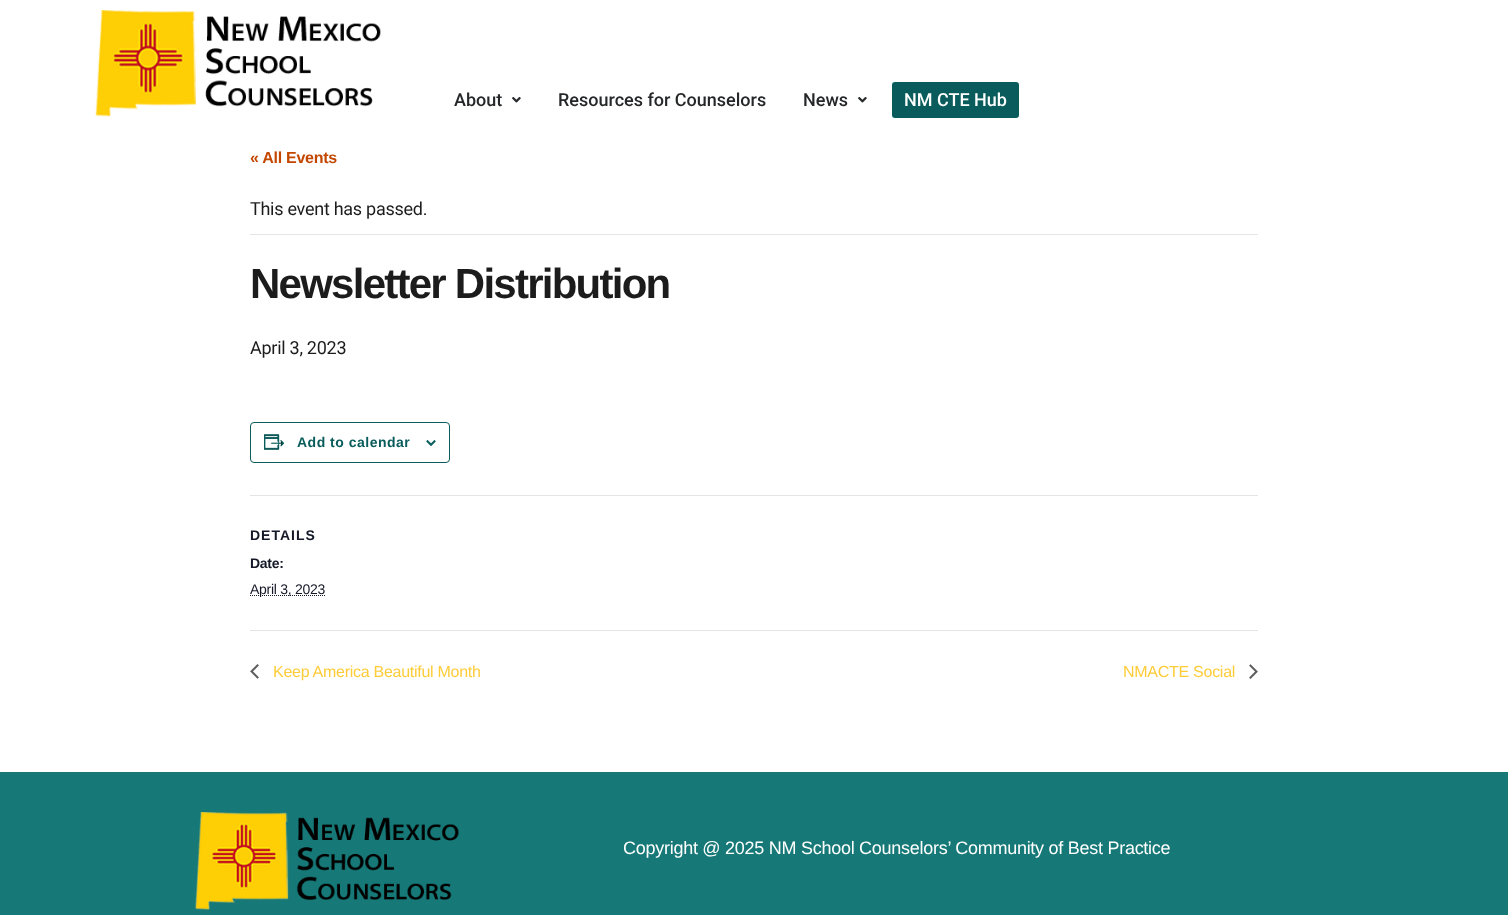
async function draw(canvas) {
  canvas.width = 1508
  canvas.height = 915
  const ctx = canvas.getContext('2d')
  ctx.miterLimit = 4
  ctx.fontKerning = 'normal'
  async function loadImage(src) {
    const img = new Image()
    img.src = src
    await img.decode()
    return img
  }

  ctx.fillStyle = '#fff'
  ctx.fillRect(0, 0, 1508, 915)
  ctx.drawImage(await loadImage('image0.png'), 95, 10, 286, 107)
  ctx.font = '500 18px Roboto'
  ctx.fillStyle = '#252729'
  ctx.fillText('About', 454, 106)
  ctx.drawImage(await loadImage('image1.png'), 512, 97, 9, 6)
  ctx.fillText('Resources for Counselors', 558, 106)
  ctx.fillText('News', 803, 106)
  ctx.drawImage(await loadImage('image1.png'), 858, 97, 9, 6)
  ctx.fillStyle = '#095c5b'
  ctx.beginPath()
  ctx.roundRect(892, 82, 127, 36, 3)
  ctx.fill()
  ctx.fillStyle = '#fff'
  ctx.fillText('NM CTE Hub', 904, 106)
  ctx.letterSpacing = '-0.27px'
  ctx.font = 'bold 16px Liberation Sans'
  ctx.fillStyle = '#c44700'
  ctx.fillText('« All Events', 250, 163)
  ctx.fillStyle = '#e4e4e4'
  ctx.fillRect(250, 234, 1008, 1)
  ctx.font = '18px Roboto'
  ctx.fillStyle = '#1c1c1c'
  ctx.fillText('This event has passed.', 250, 215)
  ctx.letterSpacing = '-1.75px'
  ctx.font = 'bold 42px Liberation Sans'
  ctx.fillText('Newsletter Distribution', 250, 298)
  ctx.letterSpacing = '-0.27px'
  ctx.font = '18px Roboto'
  ctx.fillText('April 3, 2023', 250, 354)
  ctx.beginPath()
  ctx.roundRect(250.5, 422.5, 199, 40, 3.5)
  ctx.strokeStyle = '#095c5b'
  ctx.stroke()
  ctx.drawImage(await loadImage('image2.png'), 264, 434, 21, 16)
  ctx.letterSpacing = '0.5px'
  ctx.font = 'bold 14px Liberation Sans'
  ctx.fillStyle = '#095c5b'
  ctx.fillText('Add to calendar', 297, 447)
  ctx.drawImage(await loadImage('image3.png'), 426, 440, 10, 6)
  ctx.fillStyle = '#e4e4e4'
  ctx.fillRect(250, 495, 1008, 1)
  ctx.letterSpacing = '1px'
  ctx.fillStyle = '#141827'
  ctx.fillText('DETAILS', 250, 540)
  ctx.letterSpacing = '-0.27px'
  ctx.fillText('Date:', 250, 568)
  ctx.beginPath()
  ctx.moveTo(250, 595.5)
  ctx.lineTo(325, 595.5)
  ctx.strokeStyle = '#141827'
  ctx.setLineDash([1, 1])
  ctx.stroke()
  ctx.font = '14px Liberation Sans'
  ctx.fillText('April 3, 2023', 250, 594)
  ctx.fillStyle = '#e4e4e4'
  ctx.fillRect(250, 630, 1008, 1)
  ctx.drawImage(await loadImage('image4.png'), 250, 664, 9, 15)
  ctx.font = '16px Liberation Sans'
  ctx.fillStyle = '#fecc38'
  ctx.fillText('Keep America Beautiful Month', 273, 677)
  ctx.fillText('NMACTE Social', 1123, 677)
  ctx.drawImage(await loadImage('image5.png'), 1249, 664, 9, 15)
  ctx.fillStyle = '#167877'
  ctx.fillRect(0, 772, 1508, 143)
  ctx.drawImage(await loadImage('image6.png'), 195, 812, 264, 98)
  ctx.font = '18px Liberation Sans'
  ctx.fillStyle = '#fff'
  ctx.fillText('Copyright @ 2025 NM School Counselors’ Community of Best Practice', 623, 854)
}

draw(document.querySelector('canvas'))
